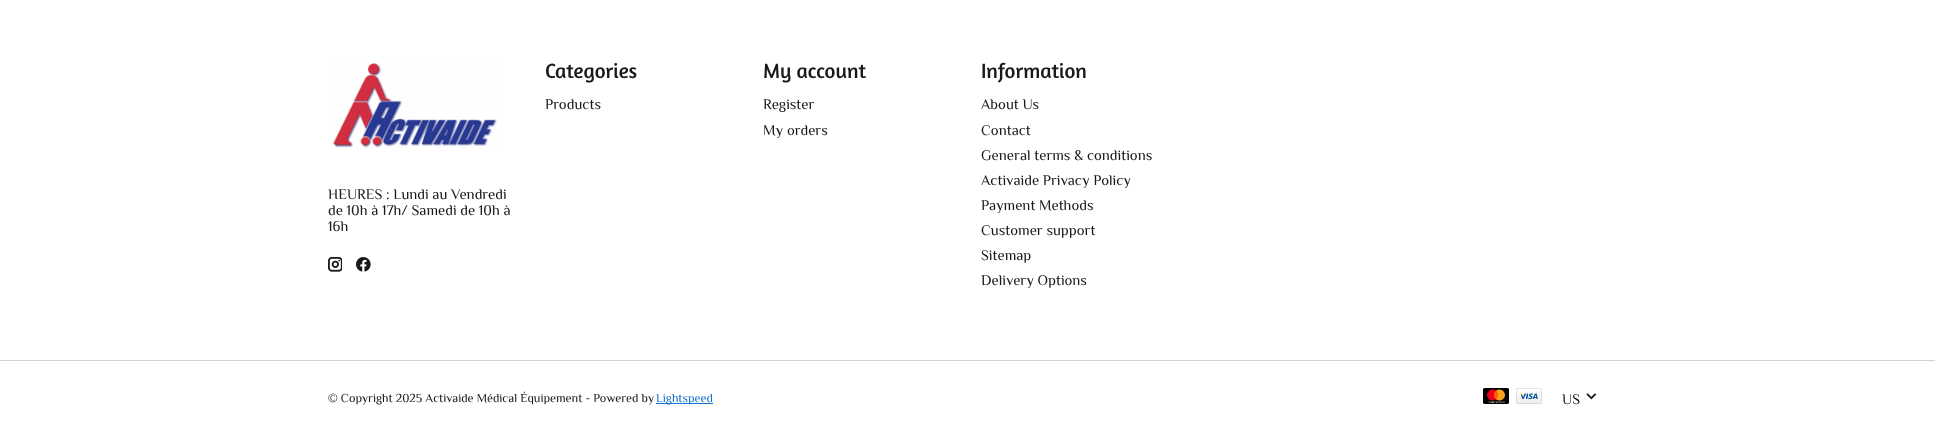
async function draw(canvas) {
  canvas.width = 1935
  canvas.height = 435
  const ctx = canvas.getContext('2d')
  ctx.miterLimit = 4
  ctx.fontKerning = 'normal'
  async function loadImage(src) {
    const img = new Image()
    img.src = src
    await img.decode()
    return img
  }

  ctx.fillStyle = '#fff'
  ctx.fillRect(0, 0, 1935, 435)
  ctx.font = '21px Amaranth'
  ctx.fillStyle = '#1a1818'
  ctx.fillText('Categories', 545, 78)
  ctx.font = '14.75px Philosopher'
  ctx.fillText('Products', 545, 109)
  ctx.font = '21px Amaranth'
  ctx.fillText('My account', 763, 78)
  ctx.font = '14.75px Philosopher'
  ctx.fillText('Register', 763, 109)
  ctx.fillText('My orders', 763, 135)
  ctx.font = '21px Amaranth'
  ctx.fillText('Information', 981, 78)
  ctx.font = '14.75px Philosopher'
  ctx.fillText('About Us', 981, 109)
  ctx.fillText('Contact', 981, 135)
  ctx.fillText('General terms & conditions', 981, 160)
  ctx.fillText('Activaide Privacy Policy', 981, 185)
  ctx.fillText('Payment Methods', 981, 210)
  ctx.fillText('Customer support', 981, 235)
  ctx.fillText('Sitemap', 981, 260)
  ctx.fillText('Delivery Options', 981, 285)
  ctx.drawImage(await loadImage('image0.png'), 333, 63, 164, 85)
  ctx.fillText('HEURES : Lundi au Vendredi', 328, 199)
  ctx.fillText('de 10h à 17h/ Samedi de 10h à', 328, 215)
  ctx.fillText('16h', 328, 231)
  ctx.drawImage(await loadImage('image1.png'), 328, 257, 14, 15)
  ctx.drawImage(await loadImage('image2.png'), 356, 257, 15, 15)
  ctx.fillStyle = '#d1d1d1'
  ctx.fillRect(0, 360, 1935, 1)
  ctx.font = '12.25px Philosopher'
  ctx.fillStyle = '#1a1818'
  ctx.fillText('© Copyright 2025 Activaide Médical Équipement - Powered by', 328, 402)
  ctx.fillStyle = '#1372cc'
  ctx.fillRect(656, 403, 57, 1)
  ctx.fillText('Lightspeed', 656, 402)
  ctx.drawImage(await loadImage('image3.png'), 1483, 388, 26, 16)
  ctx.drawImage(await loadImage('image4.png'), 1516, 388, 26, 16)
  ctx.font = '14.75px Philosopher'
  ctx.fillStyle = '#1a1818'
  ctx.fillText('US', 1562, 404)
  ctx.drawImage(await loadImage('image5.png'), 1586, 393, 11, 7)
}

draw(document.querySelector('canvas'))
